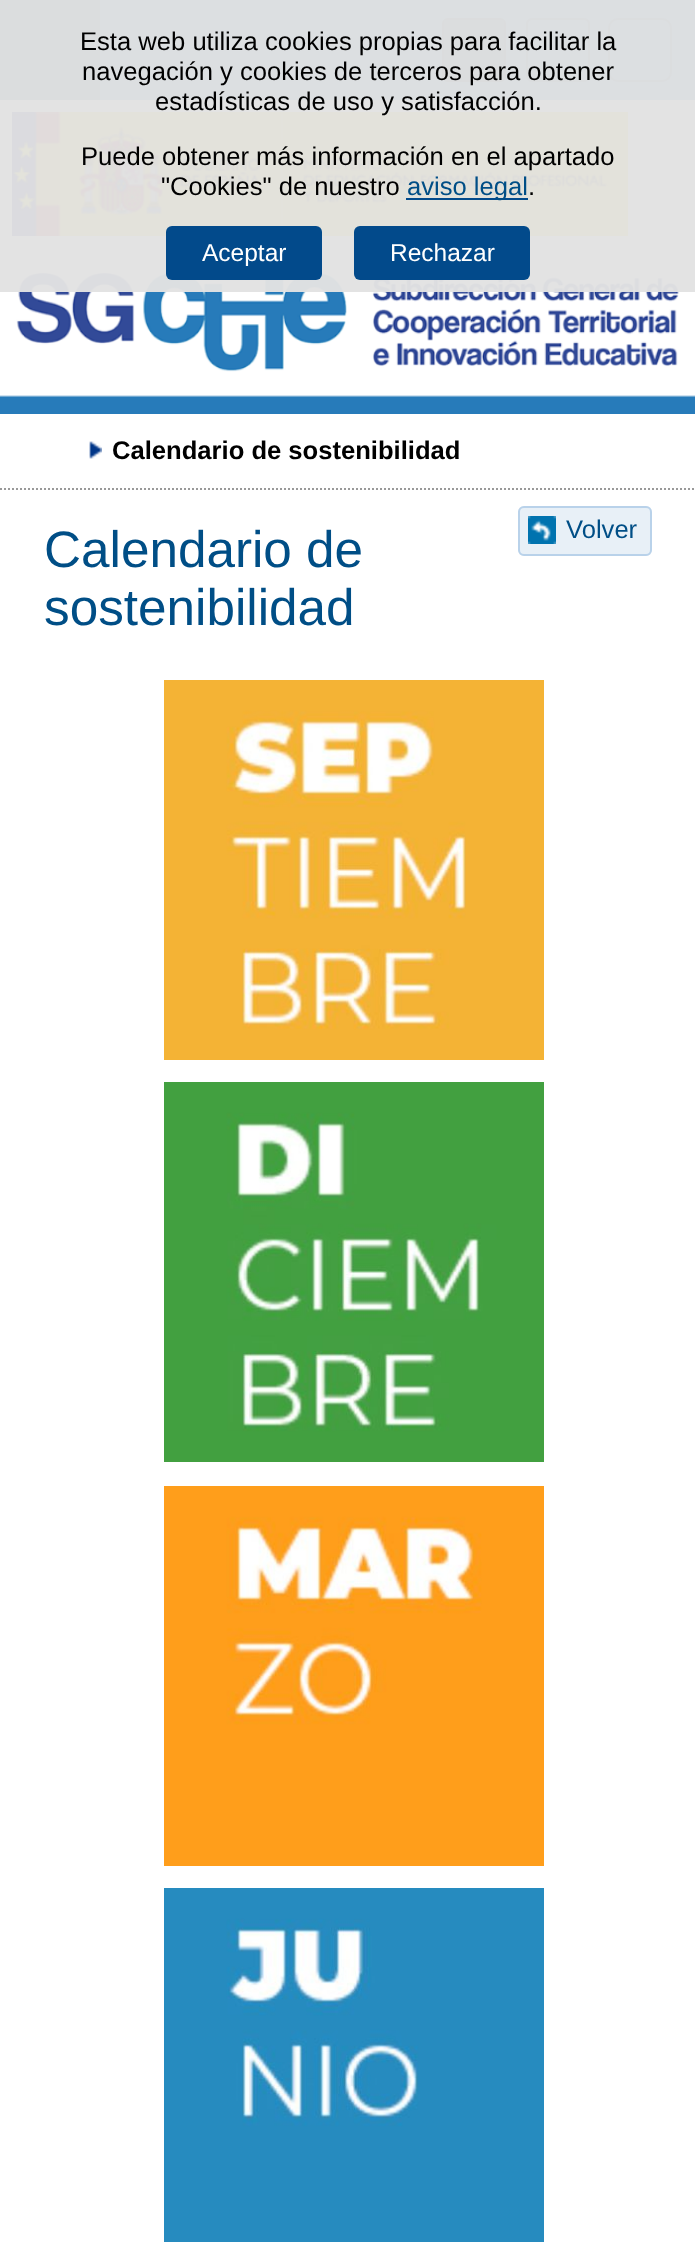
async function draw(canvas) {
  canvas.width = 695
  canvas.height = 2242
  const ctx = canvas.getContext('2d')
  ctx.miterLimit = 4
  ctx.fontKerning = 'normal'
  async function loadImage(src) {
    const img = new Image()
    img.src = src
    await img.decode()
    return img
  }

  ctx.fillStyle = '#fff'
  ctx.fillRect(0, 0, 695, 2242)
  ctx.fillStyle = '#277bba'
  ctx.fillRect(100, 0, 595, 100)
  ctx.fillStyle = '#003f6d'
  ctx.fillRect(0, 0, 100, 100)
  ctx.beginPath()
  ctx.roundRect(443, 19, 62, 62, 5)
  ctx.strokeStyle = '#00243e'
  ctx.lineWidth = 2
  ctx.stroke()
  ctx.fillRect(444, 20, 60, 60)
  ctx.beginPath()
  ctx.roundRect(527, 19, 62, 62, 5)
  ctx.strokeStyle = '#003f6d'
  ctx.stroke()
  ctx.beginPath()
  ctx.roundRect(609, 19, 62, 62, 9)
  ctx.stroke()
  ctx.drawImage(await loadImage('image0.png'), 12, 112, 616, 124)
  ctx.drawImage(await loadImage('image1.png'), 0, 272, 695, 142)
  ctx.fillStyle = '#e2e2e2f7'
  ctx.fillRect(0, 0, 695, 292)
  ctx.font = '25.6px Liberation Sans'
  ctx.fillStyle = '#000'
  ctx.fillText('Esta web utiliza cookies propias para facilitar la', 80, 50)
  ctx.fillText('navegación y cookies de terceros para obtener', 82, 80)
  ctx.fillText('estadísticas de uso y satisfacción.', 155, 110)
  ctx.fillText('Puede obtener más información en el apartado', 81, 165)
  ctx.fillText('"Cookies" de nuestro', 161, 195)
  ctx.fillStyle = '#024a8b'
  ctx.fillRect(406, 198, 122, 2)
  ctx.fillStyle = '#004e86'
  ctx.fillText('aviso legal', 407, 195)
  ctx.fillStyle = '#000'
  ctx.fillText('.', 528, 195)
  ctx.fillStyle = '#024a8b'
  ctx.beginPath()
  ctx.roundRect(166, 226, 156, 54, 6)
  ctx.fill()
  ctx.font = '24.5px Liberation Sans'
  ctx.fillStyle = '#fff'
  ctx.fillText('Aceptar', 202, 261)
  ctx.fillStyle = '#024a8b'
  ctx.beginPath()
  ctx.roundRect(354, 226, 176, 54, 6)
  ctx.fill()
  ctx.fillStyle = '#fff'
  ctx.fillText('Rechazar', 390, 261)
  ctx.beginPath()
  ctx.moveTo(0, 489)
  ctx.lineTo(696, 489)
  ctx.strokeStyle = '#999'
  ctx.setLineDash([2, 2])
  ctx.stroke()
  ctx.drawImage(await loadImage('image2.png'), 89, 441, 13, 18)
  ctx.font = 'bold 25.6px Liberation Sans'
  ctx.fillStyle = '#000'
  ctx.fillText('Calendario de sostenibilidad', 112, 459)
  ctx.font = '51.25px Liberation Sans'
  ctx.fillStyle = '#004e86'
  ctx.fillText('Calendario de', 44, 567)
  ctx.fillText('sostenibilidad', 44, 625)
  ctx.fillStyle = '#e8f0f7'
  ctx.beginPath()
  ctx.roundRect(518, 506, 134, 50, 6)
  ctx.fill()
  ctx.drawImage(await loadImage('image3.png'), 528, 516, 28, 28)
  ctx.beginPath()
  ctx.roundRect(519, 507, 132, 48, 5)
  ctx.strokeStyle = '#b9d2ea'
  ctx.setLineDash([])
  ctx.stroke()
  ctx.font = '25.6px Liberation Sans'
  ctx.fillStyle = '#004e86'
  ctx.fillText('Volver', 566, 538)
  ctx.drawImage(await loadImage('image4.png'), 164, 680, 380, 380)
  ctx.drawImage(await loadImage('image5.png'), 164, 1082, 380, 380)
  ctx.drawImage(await loadImage('image6.png'), 164, 1486, 380, 380)
  ctx.drawImage(await loadImage('image7.png'), 164, 1888, 380, 354)
}

draw(document.querySelector('canvas'))
